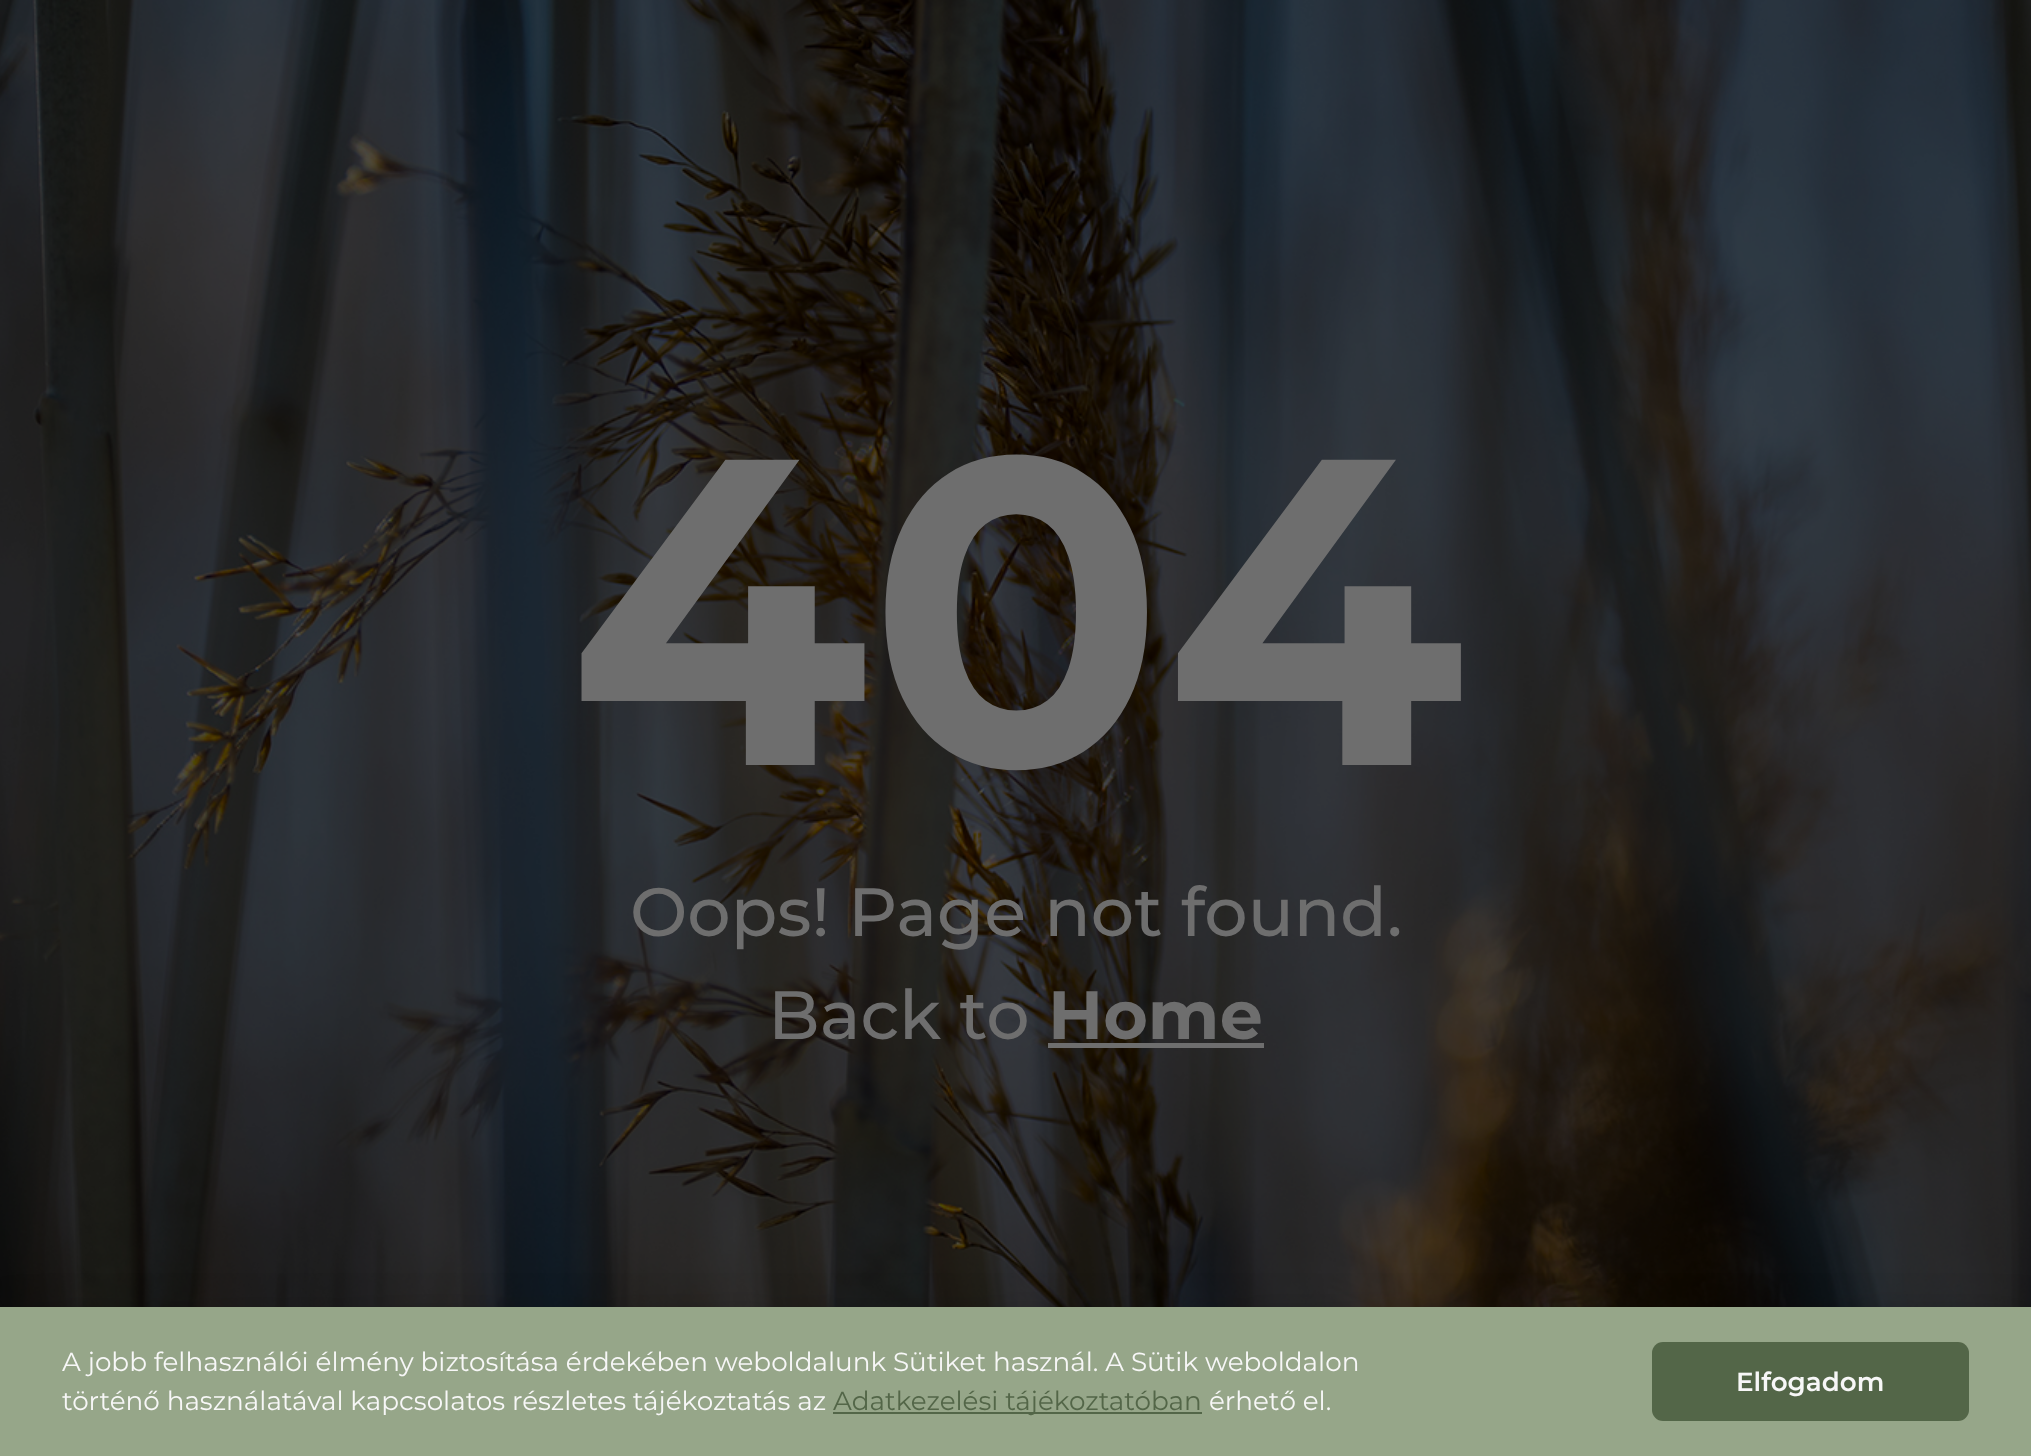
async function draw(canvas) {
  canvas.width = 2031
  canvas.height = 1456
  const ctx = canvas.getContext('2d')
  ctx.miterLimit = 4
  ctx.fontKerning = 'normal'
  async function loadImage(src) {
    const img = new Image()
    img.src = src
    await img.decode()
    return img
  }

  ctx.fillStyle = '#fff'
  ctx.fillRect(0, 0, 2031, 1456)
  ctx.drawImage(await loadImage('image0.png'), 0, 0, 2031, 1307)
  ctx.font = 'bold 436px Montserrat'
  ctx.fillStyle = '#6e6e6e'
  ctx.fillText('404', 568, 765)
  ctx.font = '500 68.25px Montserrat'
  ctx.fillText('Oops! Page not found.', 630, 936)
  ctx.fillText('Back to', 768, 1039)
  ctx.font = 'bold 68.25px Montserrat'
  ctx.fillText('Home', 1048, 1039)
  ctx.fillRect(1048, 1043, 216, 5)
  ctx.fillStyle = '#00000033'
  ctx.filter = 'blur(20px)'
  ctx.beginPath()
  ctx.rect(-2, 1316, 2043, 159)
  ctx.fill()
  ctx.filter = 'none'
  ctx.fillStyle = '#96a689'
  ctx.fillRect(0, 1307, 2031, 149)
  ctx.font = '26.25px Montserrat'
  ctx.fillStyle = '#f7f7f7'
  ctx.fillText('A jobb felhasználói élmény biztosítása érdekében weboldalunk Sütiket használ. A Sütik weboldalon', 62, 1371)
  ctx.fillText('történő használatával kapcsolatos részletes tájékoztatás az', 62, 1410)
  ctx.fillStyle = '#536648'
  ctx.fillRect(833, 1412, 369, 2)
  ctx.fillText('Adatkezelési tájékoztatóban', 833, 1410)
  ctx.fillStyle = '#f7f7f7'
  ctx.fillText('érhető el.', 1209, 1410)
  ctx.fillStyle = '#536648'
  ctx.beginPath()
  ctx.roundRect(1652, 1342, 317, 79, 11)
  ctx.fill()
  ctx.font = '600 26.25px Montserrat'
  ctx.fillStyle = '#f7f7f7'
  ctx.fillText('Elfogadom', 1736, 1391)
}

draw(document.querySelector('canvas'))
